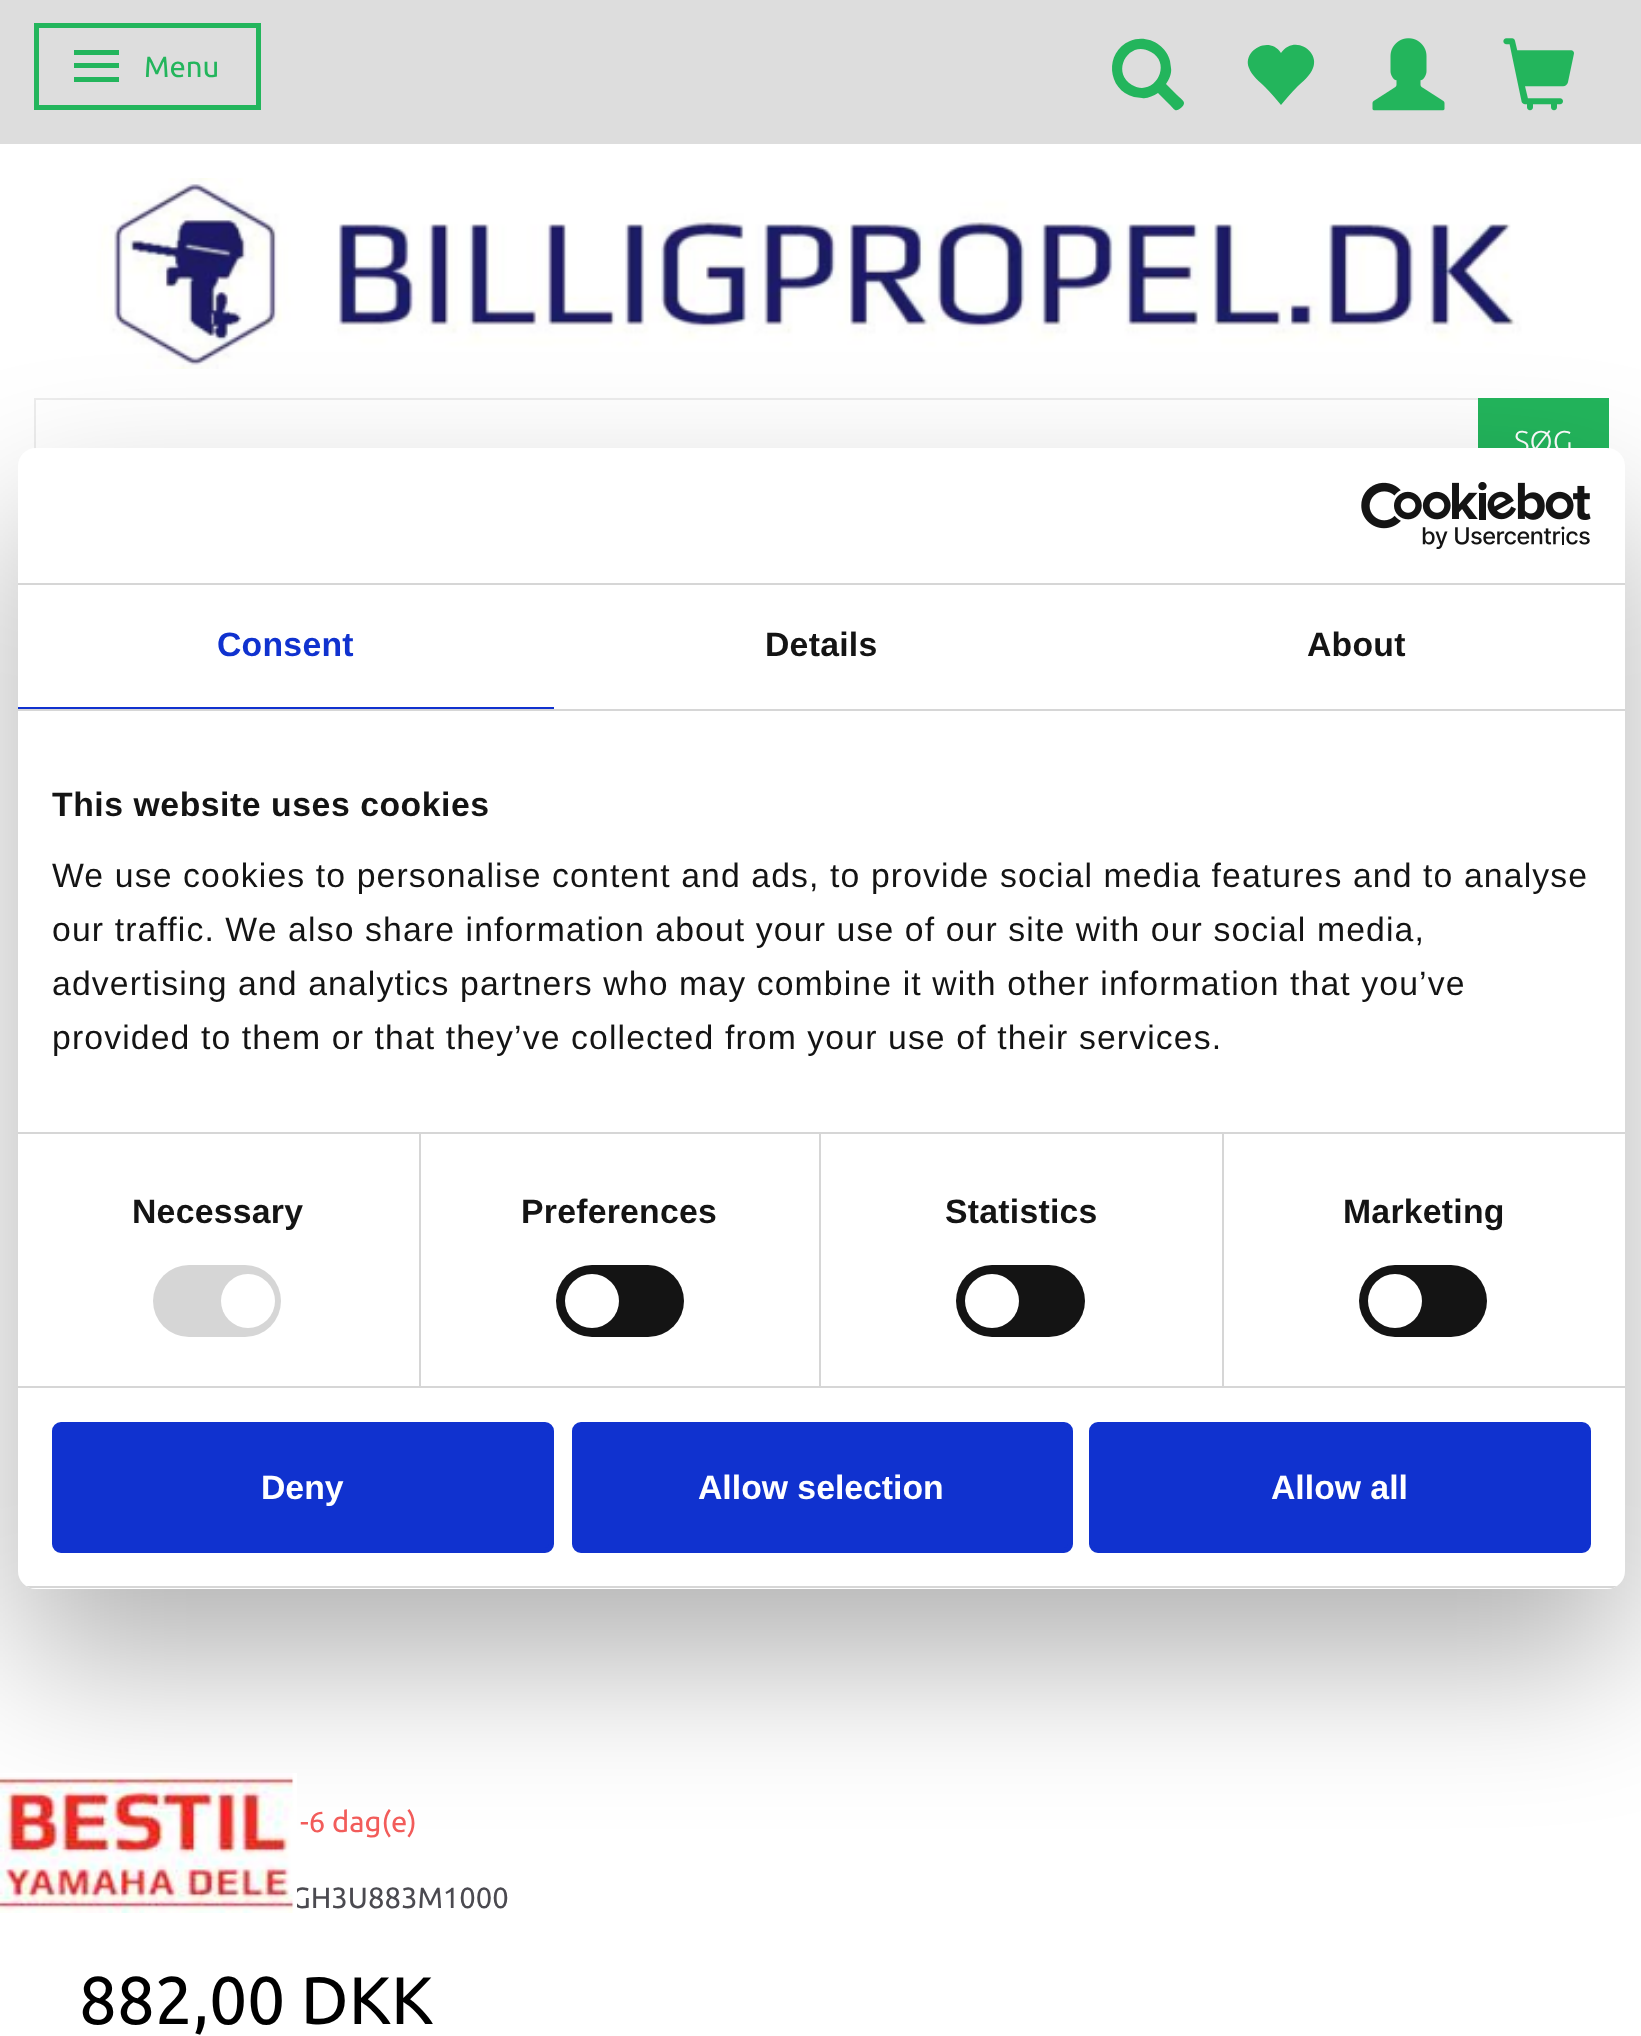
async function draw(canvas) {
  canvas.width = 1641
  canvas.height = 2036
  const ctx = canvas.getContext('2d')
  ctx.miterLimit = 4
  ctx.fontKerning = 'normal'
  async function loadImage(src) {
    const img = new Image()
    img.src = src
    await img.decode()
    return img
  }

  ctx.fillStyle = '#fff'
  ctx.fillRect(0, 0, 1641, 2036)
  ctx.fillStyle = '#ddd'
  ctx.fillRect(0, 0, 1641, 144)
  ctx.strokeStyle = '#23b55c'
  ctx.lineWidth = 5
  ctx.strokeRect(36.5, 25.5, 222, 82)
  ctx.fillStyle = '#23b55c'
  ctx.fillRect(74, 50, 45, 5)
  ctx.fillRect(74, 63, 45, 5)
  ctx.fillRect(74, 77, 45, 5)
  ctx.font = '29.25px Ubuntu'
  ctx.fillText('Menu', 144, 77)
  ctx.beginPath()
  ctx.moveTo(1130, 41)
  ctx.bezierCurveTo(1146, 34, 1166, 44, 1170, 61)
  ctx.lineTo(1171, 68)
  ctx.bezierCurveTo(1172, 73, 1169, 80, 1166, 84)
  ctx.lineTo(1177, 95)
  ctx.bezierCurveTo(1182, 100, 1187, 102, 1182, 107)
  ctx.bezierCurveTo(1175, 113, 1175, 110, 1169, 104)
  ctx.lineTo(1158, 93)
  ctx.bezierCurveTo(1153, 96, 1147, 99, 1142, 98)
  ctx.lineTo(1134, 97)
  ctx.bezierCurveTo(1107, 90, 1104, 52, 1130, 41)
  ctx.closePath()
  ctx.moveTo(1151, 52)
  ctx.bezierCurveTo(1129, 39, 1110, 72, 1132, 85)
  ctx.bezierCurveTo(1154, 98, 1173, 64, 1151, 52)
  ctx.closePath()
  ctx.fill()
  ctx.beginPath()
  ctx.moveTo(1281, 53)
  ctx.bezierCurveTo(1294, 34, 1320, 51, 1313, 68)
  ctx.bezierCurveTo(1310, 76, 1302, 82, 1297, 87)
  ctx.bezierCurveTo(1291, 93, 1286, 99, 1281, 105)
  ctx.bezierCurveTo(1276, 99, 1271, 93, 1265, 87)
  ctx.bezierCurveTo(1260, 82, 1252, 76, 1249, 68)
  ctx.bezierCurveTo(1242, 51, 1269, 35, 1281, 53)
  ctx.closePath()
  ctx.fill()
  ctx.drawImage(await loadImage('image0.png'), 1372, 38, 73, 73)
  ctx.drawImage(await loadImage('image1.png'), 1503, 38, 71, 73)
  ctx.drawImage(await loadImage('image2.png'), 74, 178, 1494, 191)
  ctx.strokeStyle = '#ededed'
  ctx.lineWidth = 2
  ctx.strokeRect(35, 399, 1445, 86)
  ctx.fillRect(1478, 398, 131, 51)
  ctx.font = '300 30px Ubuntu'
  ctx.fillStyle = '#fff'
  ctx.fillText('SØG', 1514, 452)
  ctx.font = '29.25px Ubuntu'
  ctx.fillStyle = '#4b4a50'
  ctx.fillText('GH3U883M1000', 291, 1908)
  ctx.fillStyle = '#0000004d'
  ctx.filter = 'blur(76.5px)'
  ctx.beginPath()
  ctx.roundRect(18, 520, 1607, 1141, 18)
  ctx.fill()
  ctx.filter = 'none'
  ctx.drawImage(await loadImage('image3.png'), 0, 1773, 297, 140)
  ctx.fillStyle = '#f25c5a'
  ctx.fillText('-6 dag(e)', 300, 1832)
  ctx.font = '67.25px Ubuntu'
  ctx.fillStyle = '#000'
  ctx.fillText('882,00 DKK', 79, 2024)
  ctx.fillStyle = '#fff'
  ctx.beginPath()
  ctx.roundRect(18, 448, 1607, 1141, 18)
  ctx.fill()
  ctx.fillStyle = '#d6d6d6'
  ctx.fillRect(18, 583, 1607, 2)
  ctx.drawImage(await loadImage('image4.png'), 1361, 482, 230, 67)
  ctx.fillRect(18, 709, 1607, 2)
  ctx.fillStyle = '#1032cf'
  ctx.fillRect(18, 707, 536, 2)
  ctx.letterSpacing = '0.25px'
  ctx.font = 'bold 33.75px Liberation Sans'
  ctx.fillText('Consent', 217, 656)
  ctx.fillStyle = '#141414'
  ctx.fillText('Details', 765, 656)
  ctx.fillText('About', 1307, 656)
  ctx.fillStyle = '#d6d6d6'
  ctx.fillRect(18, 1132, 1607, 2)
  ctx.letterSpacing = '0.55px'
  ctx.fillStyle = '#141414'
  ctx.fillText('This website uses cookies', 52, 816)
  ctx.letterSpacing = '1.12px'
  ctx.font = '33.75px Liberation Sans'
  ctx.fillText('We use cookies to personalise content and ads, to provide social media features and to analyse', 52, 887)
  ctx.fillText('our traffic. We also share information about your use of our site with our social media,', 52, 941)
  ctx.fillText('advertising and analytics partners who may combine it with other information that you’ve', 52, 995)
  ctx.fillText('provided to them or that they’ve collected from your use of their services.', 52, 1049)
  ctx.fillStyle = '#d6d6d6'
  ctx.fillRect(18, 1386, 1607, 2)
  ctx.fillRect(419, 1134, 2, 252)
  ctx.letterSpacing = '0.25px'
  ctx.font = 'bold 33.75px Liberation Sans'
  ctx.fillStyle = '#141414'
  ctx.fillText('Necessary', 132, 1223)
  ctx.fillStyle = '#d6d6d6'
  ctx.beginPath()
  ctx.roundRect(153, 1265, 128, 72, 36)
  ctx.fill()
  ctx.fillStyle = '#fff'
  ctx.beginPath()
  ctx.arc(248, 1301, 27, 0, 2 * Math.PI)
  ctx.fill()
  ctx.fillStyle = '#d6d6d6'
  ctx.fillRect(819, 1134, 2, 252)
  ctx.fillStyle = '#141414'
  ctx.fillText('Preferences', 521, 1223)
  ctx.beginPath()
  ctx.roundRect(556, 1265, 128, 72, 36)
  ctx.fill()
  ctx.fillStyle = '#fff'
  ctx.beginPath()
  ctx.arc(592, 1301, 27, 0, 2 * Math.PI)
  ctx.fill()
  ctx.fillStyle = '#d6d6d6'
  ctx.fillRect(1222, 1134, 2, 252)
  ctx.fillStyle = '#141414'
  ctx.fillText('Statistics', 945, 1223)
  ctx.beginPath()
  ctx.roundRect(956, 1265, 129, 72, 36)
  ctx.fill()
  ctx.fillStyle = '#fff'
  ctx.beginPath()
  ctx.arc(992, 1301, 27, 0, 2 * Math.PI)
  ctx.fill()
  ctx.fillStyle = '#141414'
  ctx.fillText('Marketing', 1343, 1223)
  ctx.beginPath()
  ctx.roundRect(1359, 1265, 128, 72, 36)
  ctx.fill()
  ctx.fillStyle = '#fff'
  ctx.beginPath()
  ctx.arc(1395, 1301, 27, 0, 2 * Math.PI)
  ctx.fill()
  ctx.save()
  ctx.beginPath()
  ctx.roundRect(18, 448, 1607, 1141, 18)
  ctx.clip()
  ctx.fillStyle = '#d6d6d6'
  ctx.fillRect(18, 1586, 1607, 2)
  ctx.restore()
  ctx.fillStyle = '#1032cf'
  ctx.beginPath()
  ctx.roundRect(54.5, 1424.5, 497, 126, 6.5)
  ctx.fill()
  ctx.strokeStyle = '#1032cf'
  ctx.lineWidth = 5
  ctx.stroke()
  ctx.letterSpacing = '0px'
  ctx.fillStyle = '#fff'
  ctx.fillText('Deny', 261, 1499)
  ctx.fillStyle = '#1032cf'
  ctx.beginPath()
  ctx.roundRect(574.5, 1424.5, 496, 126, 6.5)
  ctx.fill()
  ctx.stroke()
  ctx.fillStyle = '#fff'
  ctx.fillText('Allow selection', 698, 1499)
  ctx.fillStyle = '#1032cf'
  ctx.beginPath()
  ctx.roundRect(1091.5, 1424.5, 497, 126, 6.5)
  ctx.fill()
  ctx.stroke()
  ctx.fillStyle = '#fff'
  ctx.fillText('Allow all', 1271, 1499)
}

draw(document.querySelector('canvas'))
